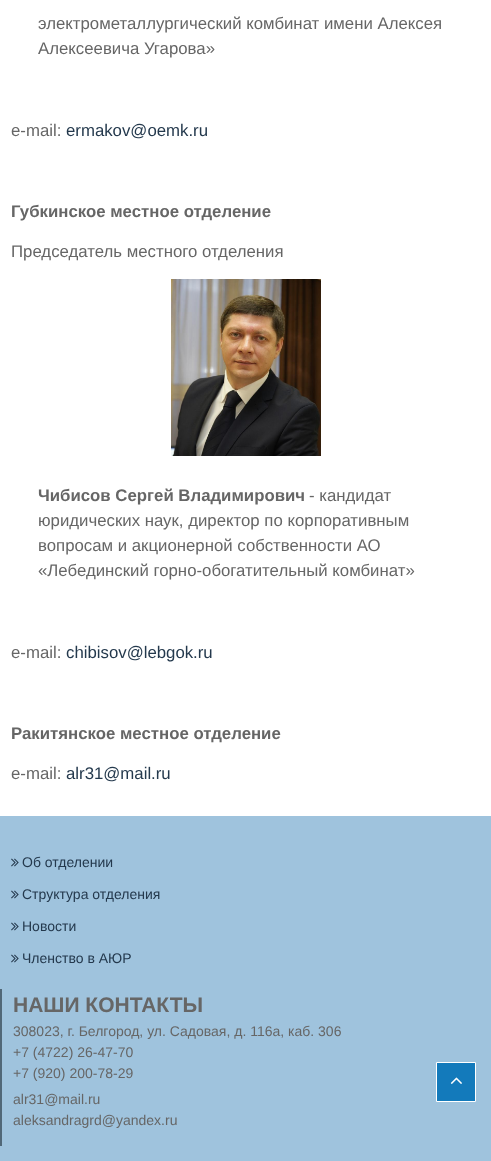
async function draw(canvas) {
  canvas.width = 491
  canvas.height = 1161
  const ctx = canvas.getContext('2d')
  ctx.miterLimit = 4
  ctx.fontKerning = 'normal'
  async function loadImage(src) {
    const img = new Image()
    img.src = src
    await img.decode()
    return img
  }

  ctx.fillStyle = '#fff'
  ctx.fillRect(0, 0, 491, 1161)
  ctx.font = '16.8px Liberation Sans'
  ctx.fillStyle = '#666'
  ctx.fillText('электрометаллургический комбинат имени Алексея', 38, 29)
  ctx.fillText('Алексеевича Угарова»', 38, 54)
  ctx.fillText('е-mail:', 11, 136)
  ctx.fillStyle = '#24394d'
  ctx.fillText('ermakov@oemk.ru', 66, 136)
  ctx.font = 'bold 16.8px Liberation Sans'
  ctx.fillStyle = '#666'
  ctx.fillText('Губкинское местное отделение', 11, 217)
  ctx.font = '16.8px Liberation Sans'
  ctx.fillText('Председатель местного отделения', 11, 257)
  ctx.drawImage(await loadImage('image0.png'), 171, 279, 150, 177)
  ctx.font = 'bold 16.8px Liberation Sans'
  ctx.fillText('Чибисов Сергей Владимирович', 38, 501)
  ctx.font = '16.8px Liberation Sans'
  ctx.fillText('- кандидат', 309, 501)
  ctx.fillText('юридических наук, директор по корпоративным', 38, 526)
  ctx.fillText('вопросам и акционерной собственности АО', 38, 551)
  ctx.fillText('«Лебединский горно-обогатительный комбинат»', 38, 576)
  ctx.fillText('е-mail:', 11, 658)
  ctx.fillStyle = '#24394d'
  ctx.fillText('сhibisov@lebgok.ru', 66, 658)
  ctx.font = 'bold 16.8px Liberation Sans'
  ctx.fillStyle = '#666'
  ctx.fillText('Ракитянское местное отделение', 11, 739)
  ctx.font = '16.8px Liberation Sans'
  ctx.fillText('е-mail:', 11, 779)
  ctx.fillStyle = '#24394d'
  ctx.fillText('alr31@mail.ru', 66, 779)
  ctx.fillStyle = '#9fc3dd'
  ctx.fillRect(0, 816, 491, 345)
  ctx.drawImage(await loadImage('image1.png'), 11, 858, 8, 9)
  ctx.font = '14px Liberation Sans'
  ctx.fillStyle = '#24394d'
  ctx.fillText('Об отделении', 22, 867)
  ctx.drawImage(await loadImage('image1.png'), 11, 890, 8, 9)
  ctx.fillText('Структура отделения', 22, 899)
  ctx.drawImage(await loadImage('image1.png'), 11, 922, 8, 9)
  ctx.fillText('Новости', 22, 931)
  ctx.drawImage(await loadImage('image1.png'), 11, 954, 8, 9)
  ctx.fillText('Членство в АЮР', 22, 963)
  ctx.fillStyle = '#516878'
  ctx.fillRect(0, 989, 2, 157)
  ctx.font = 'bold 21px Liberation Sans'
  ctx.fillStyle = '#666'
  ctx.fillText('НАШИ КОНТАКТЫ', 13, 1012)
  ctx.font = '14px Liberation Sans'
  ctx.fillText('308023, г. Белгород, ул. Садовая, д. 116а, каб. 306', 13, 1036)
  ctx.fillText('+7 (4722) 26-47-70', 13, 1057)
  ctx.fillText('+7 (920) 200-78-29', 13, 1078)
  ctx.fillText('alr31@mail.ru', 13, 1104)
  ctx.fillText('aleksandragrd@yandex.ru', 13, 1125)
  ctx.fillStyle = '#137abb'
  ctx.beginPath()
  ctx.rect(436.5, 1062.5, 39, 39)
  ctx.fill()
  ctx.strokeStyle = '#fff'
  ctx.stroke()
  ctx.drawImage(await loadImage('image2.png'), 450, 1077, 12, 7)
}

draw(document.querySelector('canvas'))
